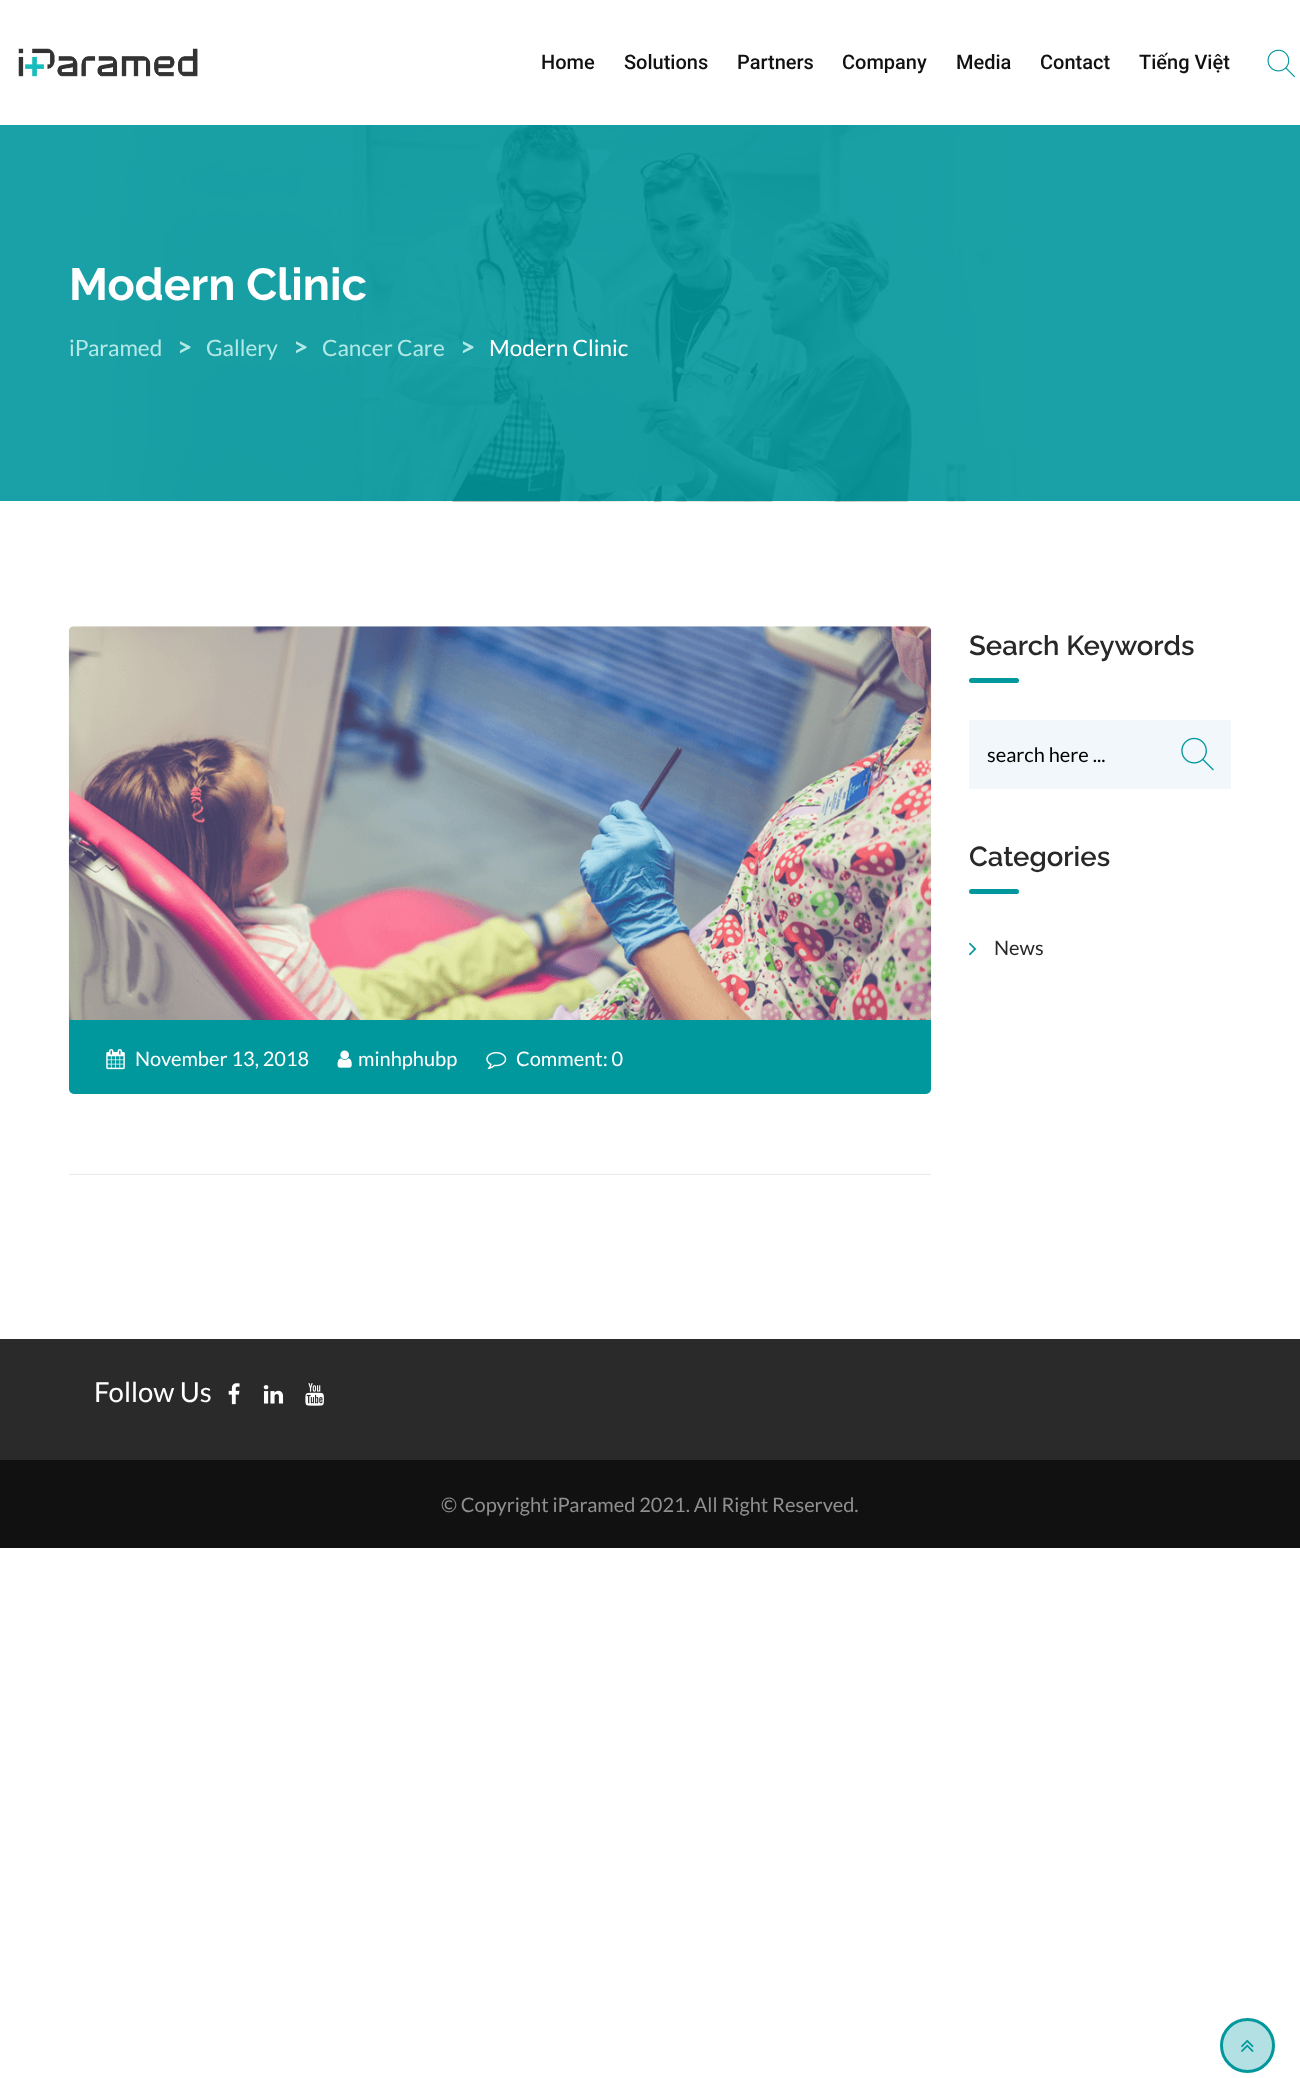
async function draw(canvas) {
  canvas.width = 1300
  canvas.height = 2078
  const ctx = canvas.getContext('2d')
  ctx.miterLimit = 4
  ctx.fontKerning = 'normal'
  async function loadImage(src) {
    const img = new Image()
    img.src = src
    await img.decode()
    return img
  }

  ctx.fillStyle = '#fff'
  ctx.fillRect(0, 0, 1300, 2078)
  ctx.fillStyle = '#19a1a7'
  ctx.fillRect(0, 125, 1300, 376)
  ctx.drawImage(await loadImage('image0.png'), 18, 48, 180, 29)
  ctx.font = '500 20px Roboto'
  ctx.fillStyle = '#111'
  ctx.fillText('Home', 541, 69)
  ctx.fillText('Solutions', 624, 69)
  ctx.fillText('Partners', 737, 69)
  ctx.fillText('Company', 842, 69)
  ctx.fillText('Media', 956, 69)
  ctx.fillText('Contact', 1040, 69)
  ctx.fillText('Tiếng Việt', 1139, 69)
  ctx.drawImage(await loadImage('image1.png'), 1267, 49, 28, 29)
  ctx.drawImage(await loadImage('image2.png'), 88, 125, 954, 377)
  ctx.font = 'bold 45px Raleway'
  ctx.fillStyle = '#fff'
  ctx.fillText('Modern Clinic', 69, 300)
  ctx.font = '22.5px Lato'
  ctx.fillStyle = '#b2e8e5'
  ctx.fillText('iParamed', 69, 356)
  ctx.font = 'bold 25px Lato'
  ctx.fillText('>', 177, 356)
  ctx.font = '22.5px Lato'
  ctx.fillText('Gallery', 206, 356)
  ctx.font = 'bold 25px Lato'
  ctx.fillText('>', 293, 356)
  ctx.font = '22.5px Lato'
  ctx.fillText('Cancer Care', 322, 356)
  ctx.font = 'bold 25px Lato'
  ctx.fillText('>', 460, 356)
  ctx.font = '22.5px Lato'
  ctx.fillStyle = '#fff'
  ctx.fillText('Modern Clinic', 489, 356)
  ctx.font = '600 27.5px Raleway'
  ctx.fillStyle = '#282828'
  ctx.fillText('Search Keywords', 969, 655)
  ctx.fillStyle = '#00979d'
  ctx.beginPath()
  ctx.roundRect(969, 678, 50, 5, 2.5)
  ctx.fill()
  ctx.fillStyle = '#f1f7fa'
  ctx.fillRect(969, 720, 262, 69)
  ctx.font = '20px Lato'
  ctx.fillStyle = '#000'
  ctx.fillText('search here ...', 987, 762)
  ctx.drawImage(await loadImage('image3.png'), 1181, 737, 33, 34)
  ctx.font = '600 27.5px Raleway'
  ctx.fillStyle = '#282828'
  ctx.fillText('Categories', 969, 866)
  ctx.fillStyle = '#00979d'
  ctx.beginPath()
  ctx.roundRect(969, 889, 50, 5, 2.5)
  ctx.fill()
  ctx.drawImage(await loadImage('image4.png'), 969, 942, 8, 14)
  ctx.font = '20px Lato'
  ctx.fillStyle = '#282828'
  ctx.fillText('News', 994, 955)
  ctx.drawImage(await loadImage('image5.png'), 68, 626, 864, 394)
  ctx.fillStyle = '#00979d'
  ctx.beginPath()
  ctx.roundRect(69, 1020, 862, 74, [0, 0, 5, 5])
  ctx.fill()
  ctx.drawImage(await loadImage('image6.png'), 106, 1049, 19, 21)
  ctx.fillStyle = '#fff'
  ctx.fillText('November 13, 2018', 135, 1066)
  ctx.drawImage(await loadImage('image7.png'), 337, 1050, 15, 18)
  ctx.fillText('minhphubp', 358, 1066)
  ctx.drawImage(await loadImage('image8.png'), 486, 1052, 21, 18)
  ctx.fillText('Comment: 0', 516, 1066)
  ctx.fillStyle = '#ebebeb'
  ctx.fillRect(69, 1174, 862, 1)
  ctx.fillStyle = '#2a2a2a'
  ctx.fillRect(0, 1339, 1300, 121)
  ctx.font = '27.5px Lato'
  ctx.fillStyle = '#fff'
  ctx.fillText('Follow Us', 94, 1402)
  ctx.drawImage(await loadImage('image9.png'), 228, 1383, 12, 22)
  ctx.drawImage(await loadImage('image10.png'), 263, 1385, 21, 19)
  ctx.drawImage(await loadImage('image11.png'), 305, 1383, 19, 23)
  ctx.fillStyle = '#111'
  ctx.fillRect(0, 1460, 1300, 88)
  ctx.font = '20px Lato'
  ctx.fillStyle = '#8f8f8f'
  ctx.fillText('© Copyright iParamed 2021. All Right Reserved.', 441, 1512)
  ctx.fillStyle = '#b3e0e2'
  ctx.beginPath()
  ctx.arc(1247.5, 2045.5, 26, 0, 2 * Math.PI)
  ctx.fill()
  ctx.strokeStyle = '#00979d'
  ctx.lineWidth = 3
  ctx.stroke()
  ctx.drawImage(await loadImage('image12.png'), 1241, 2039, 13, 13)
}

draw(document.querySelector('canvas'))
